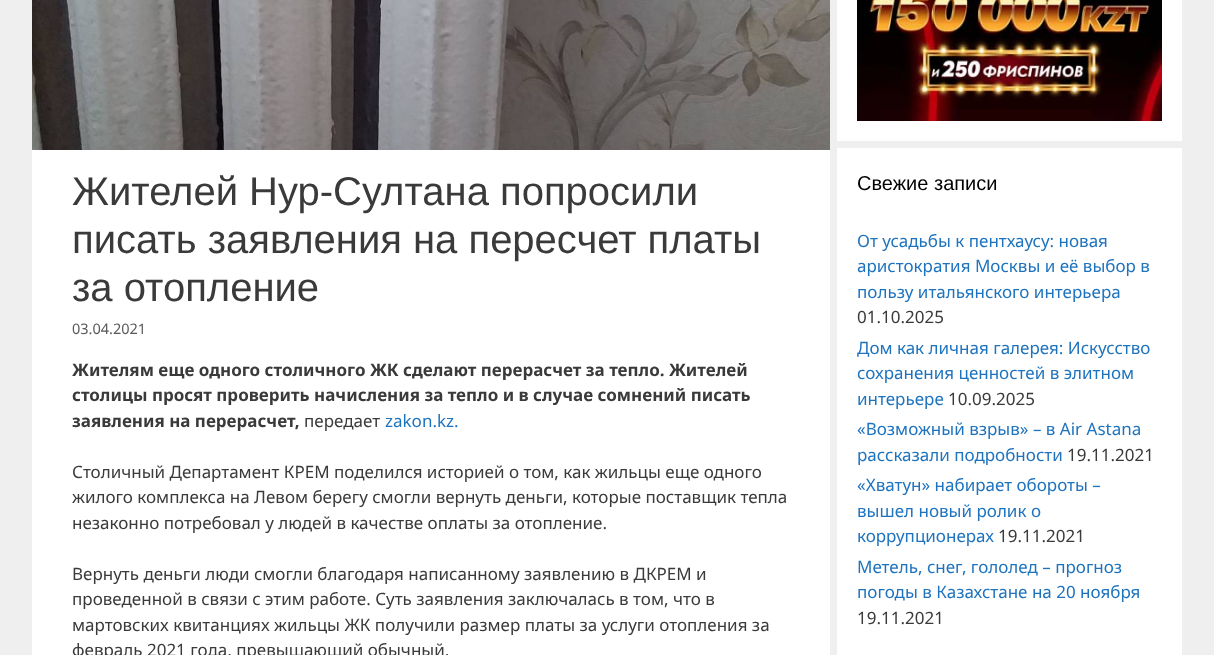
async function draw(canvas) {
  canvas.width = 1214
  canvas.height = 655
  const ctx = canvas.getContext('2d')
  ctx.miterLimit = 4
  ctx.fontKerning = 'normal'
  async function loadImage(src) {
    const img = new Image()
    img.src = src
    await img.decode()
    return img
  }

  ctx.fillStyle = '#efefef'
  ctx.fillRect(0, 0, 1214, 655)
  ctx.fillStyle = '#fff'
  ctx.fillRect(32, 150, 798, 505)
  ctx.drawImage(await loadImage('image0.png'), 32, 0, 798, 150)
  ctx.font = '40px Liberation Sans'
  ctx.fillStyle = '#3a3a3a'
  ctx.fillText('Жителей Нур-Султана попросили', 72, 205)
  ctx.fillText('писать заявления на пересчет платы', 72, 253)
  ctx.fillText('за отопление', 72, 301)
  ctx.font = '14.5px Noto Sans'
  ctx.fillStyle = '#595959'
  ctx.fillText('03.04.2021', 72, 334)
  ctx.font = 'bold 17px Noto Sans'
  ctx.fillStyle = '#3a3a3a'
  ctx.fillText('Жителям еще одного столичного ЖК сделают перерасчет за тепло. Жителей', 72, 376)
  ctx.fillText('столицы просят проверить начисления за тепло и в случае сомнений писать', 72, 401)
  ctx.fillText('заявления на перерасчет,', 72, 427)
  ctx.font = '17px Noto Sans'
  ctx.fillText('передает', 304, 427)
  ctx.fillStyle = '#1e73be'
  ctx.fillText('zakon.kz.', 385, 427)
  ctx.fillStyle = '#3a3a3a'
  ctx.fillText('Столичный Департамент КРЕМ поделился историей о том, как жильцы еще одного', 72, 478)
  ctx.fillText('жилого комплекса на Левом берегу смогли вернуть деньги, которые поставщик тепла', 72, 503)
  ctx.fillText('незаконно потребовал у людей в качестве оплаты за отопление.', 72, 529)
  ctx.fillText('Вернуть деньги люди смогли благодаря написанному заявлению в ДКРЕМ и', 72, 580)
  ctx.fillText('проведенной в связи с этим работе. Суть заявления заключалась в том, что в', 72, 605)
  ctx.fillText('мартовских квитанциях жильцы ЖК получили размер платы за услуги отопления за', 72, 631)
  ctx.fillText('февраль 2021 года, превышающий обычный.', 72, 656)
  ctx.fillStyle = '#fff'
  ctx.fillRect(837, 0, 345, 141)
  ctx.drawImage(await loadImage('image1.png'), 857, 0, 305, 121)
  ctx.fillRect(837, 148, 345, 507)
  ctx.font = '20px Liberation Sans'
  ctx.fillStyle = '#000'
  ctx.fillText('Свежие записи', 857, 190)
  ctx.font = '17px Noto Sans'
  ctx.fillStyle = '#1e73be'
  ctx.fillText('От усадьбы к пентхаусу: новая', 857, 247)
  ctx.fillText('аристократия Москвы и её выбор в', 857, 272)
  ctx.fillText('пользу итальянского интерьера', 857, 298)
  ctx.fillStyle = '#3a3a3a'
  ctx.fillText('01.10.2025', 857, 323)
  ctx.fillStyle = '#1e73be'
  ctx.fillText('Дом как личная галерея: Искусство', 857, 354)
  ctx.fillText('сохранения ценностей в элитном', 857, 379)
  ctx.fillText('интерьере', 857, 405)
  ctx.fillStyle = '#3a3a3a'
  ctx.fillText('10.09.2025', 948, 405)
  ctx.fillStyle = '#1e73be'
  ctx.fillText('«Возможный взрыв» – в Air Astana', 857, 435)
  ctx.fillText('рассказали подробности', 857, 461)
  ctx.fillStyle = '#3a3a3a'
  ctx.fillText('19.11.2021', 1067, 461)
  ctx.fillStyle = '#1e73be'
  ctx.fillText('«Хватун» набирает обороты –', 857, 491)
  ctx.fillText('вышел новый ролик о', 857, 517)
  ctx.fillText('коррупционерах', 857, 542)
  ctx.fillStyle = '#3a3a3a'
  ctx.fillText('19.11.2021', 998, 542)
  ctx.fillStyle = '#1e73be'
  ctx.fillText('Метель, снег, гололед – прогноз', 857, 573)
  ctx.fillText('погоды в Казахстане на 20 ноября', 857, 598)
  ctx.fillStyle = '#3a3a3a'
  ctx.fillText('19.11.2021', 857, 624)
}

draw(document.querySelector('canvas'))
